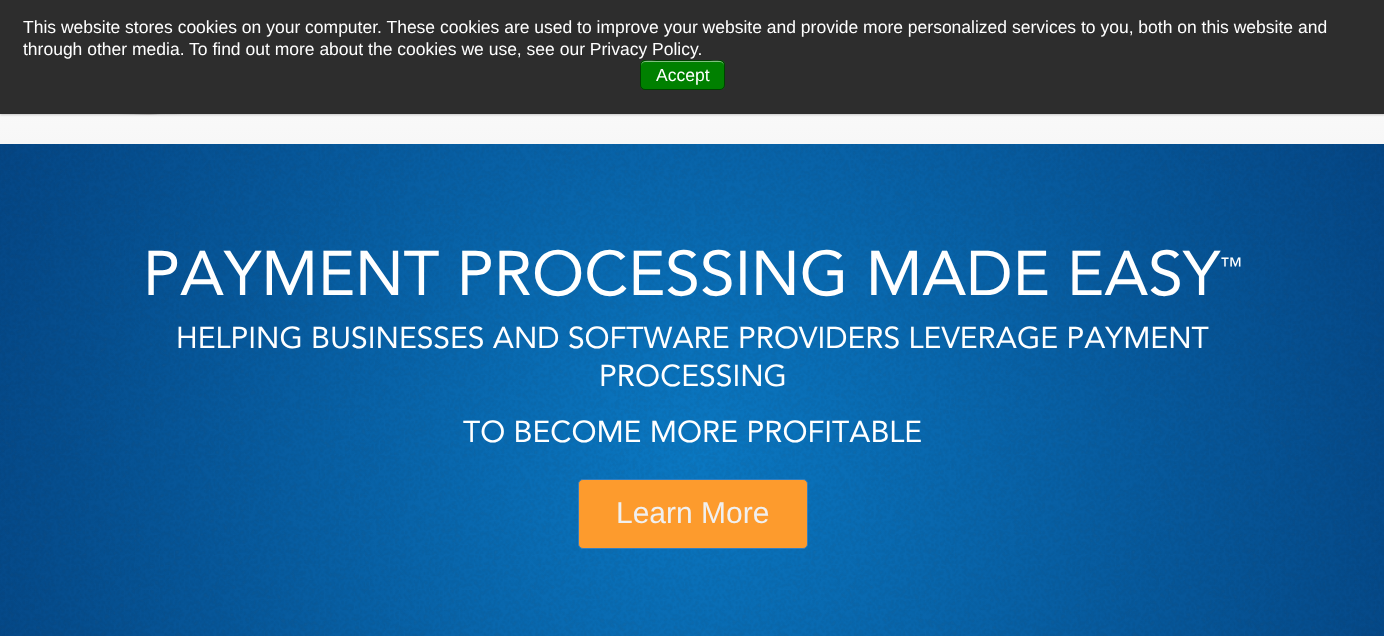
async function draw(canvas) {
  canvas.width = 1384
  canvas.height = 636
  const ctx = canvas.getContext('2d')
  ctx.miterLimit = 4
  ctx.fontKerning = 'normal'
  async function loadImage(src) {
    const img = new Image()
    img.src = src
    await img.decode()
    return img
  }
  let gradient

  ctx.fillStyle = '#fff'
  ctx.fillRect(0, 0, 1384, 636)
  gradient = ctx.createLinearGradient(693, 0, 693, 144)
  gradient.addColorStop(0, '#fff')
  gradient.addColorStop(1, '#f7f7f7')
  ctx.fillStyle = gradient
  ctx.fillRect(0, 114, 1384, 30)
  ctx.drawImage(await loadImage('image0.png'), 117, 114, 65, 1)
  ctx.fillStyle = '#00000033'
  ctx.filter = 'blur(1px)'
  ctx.beginPath()
  ctx.rect(0, 1, 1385, 114)
  ctx.fill()
  ctx.filter = 'none'
  ctx.fillStyle = '#2d2d2d'
  ctx.fillRect(0, 0, 1384, 114)
  ctx.font = '17.5px Liberation Sans'
  ctx.fillStyle = '#fff'
  ctx.fillText('This website stores cookies on your computer. These cookies are used to improve your website and provide more personalized services to you, both on this website and', 23, 33)
  ctx.fillText('through other media. To find out more about the cookies we use, see our Privacy Policy.', 23, 55)
  ctx.fillStyle = '#008000'
  ctx.beginPath()
  ctx.roundRect(640, 60, 85, 30, 5)
  ctx.fill()
  ctx.fillStyle = '#80c080'
  ctx.beginPath()
  ctx.moveTo(645, 62)
  ctx.lineTo(720, 62)
  ctx.bezierCurveTo(722, 62, 724, 64, 724, 66)
  ctx.bezierCurveTo(724, 58, 712, 61, 708, 61)
  ctx.lineTo(658, 61)
  ctx.bezierCurveTo(653, 61, 641, 58, 641, 66)
  ctx.bezierCurveTo(641, 64, 643, 62, 645, 62)
  ctx.closePath()
  ctx.fill()
  ctx.beginPath()
  ctx.roundRect(640.5, 60.5, 84, 29, 4.5)
  ctx.strokeStyle = '#00000080'
  ctx.stroke()
  ctx.fillStyle = '#fff'
  ctx.fillText('Accept', 656, 81)
  gradient = ctx.createRadialGradient(693, 456, 0, 693, 456, 1768)
  gradient.addColorStop(0, '#0b78c2')
  gradient.addColorStop(0.8, '#001b50')
  ctx.fillStyle = gradient
  ctx.fillRect(0, 144, 1384, 492)
  ctx.drawImage(await loadImage('image1.png'), 0, 144, 1384, 492)
  ctx.font = '62.5px Avenir'
  ctx.fillStyle = '#fff'
  ctx.fillText('PAYMENT PROCESSING MADE EASY', 143, 295)
  ctx.font = '22px Avenir'
  ctx.fillText('™', 1220, 273)
  ctx.font = '30px Avenir'
  ctx.fillText('HELPING BUSINESSES AND SOFTWARE PROVIDERS LEVERAGE PAYMENT', 176, 348)
  ctx.fillText('PROCESSING', 599, 386)
  ctx.fillText('TO BECOME MORE PROFITABLE', 463, 442)
  ctx.fillStyle = '#fd9b2d'
  ctx.beginPath()
  ctx.roundRect(578.5, 479.5, 229, 69, 4.5)
  ctx.fill()
  ctx.strokeStyle = '#357ebd'
  ctx.stroke()
  ctx.font = '30px Liberation Sans'
  ctx.fillStyle = '#f0f0f0'
  ctx.fillText('Learn More', 616, 523)
}

draw(document.querySelector('canvas'))
